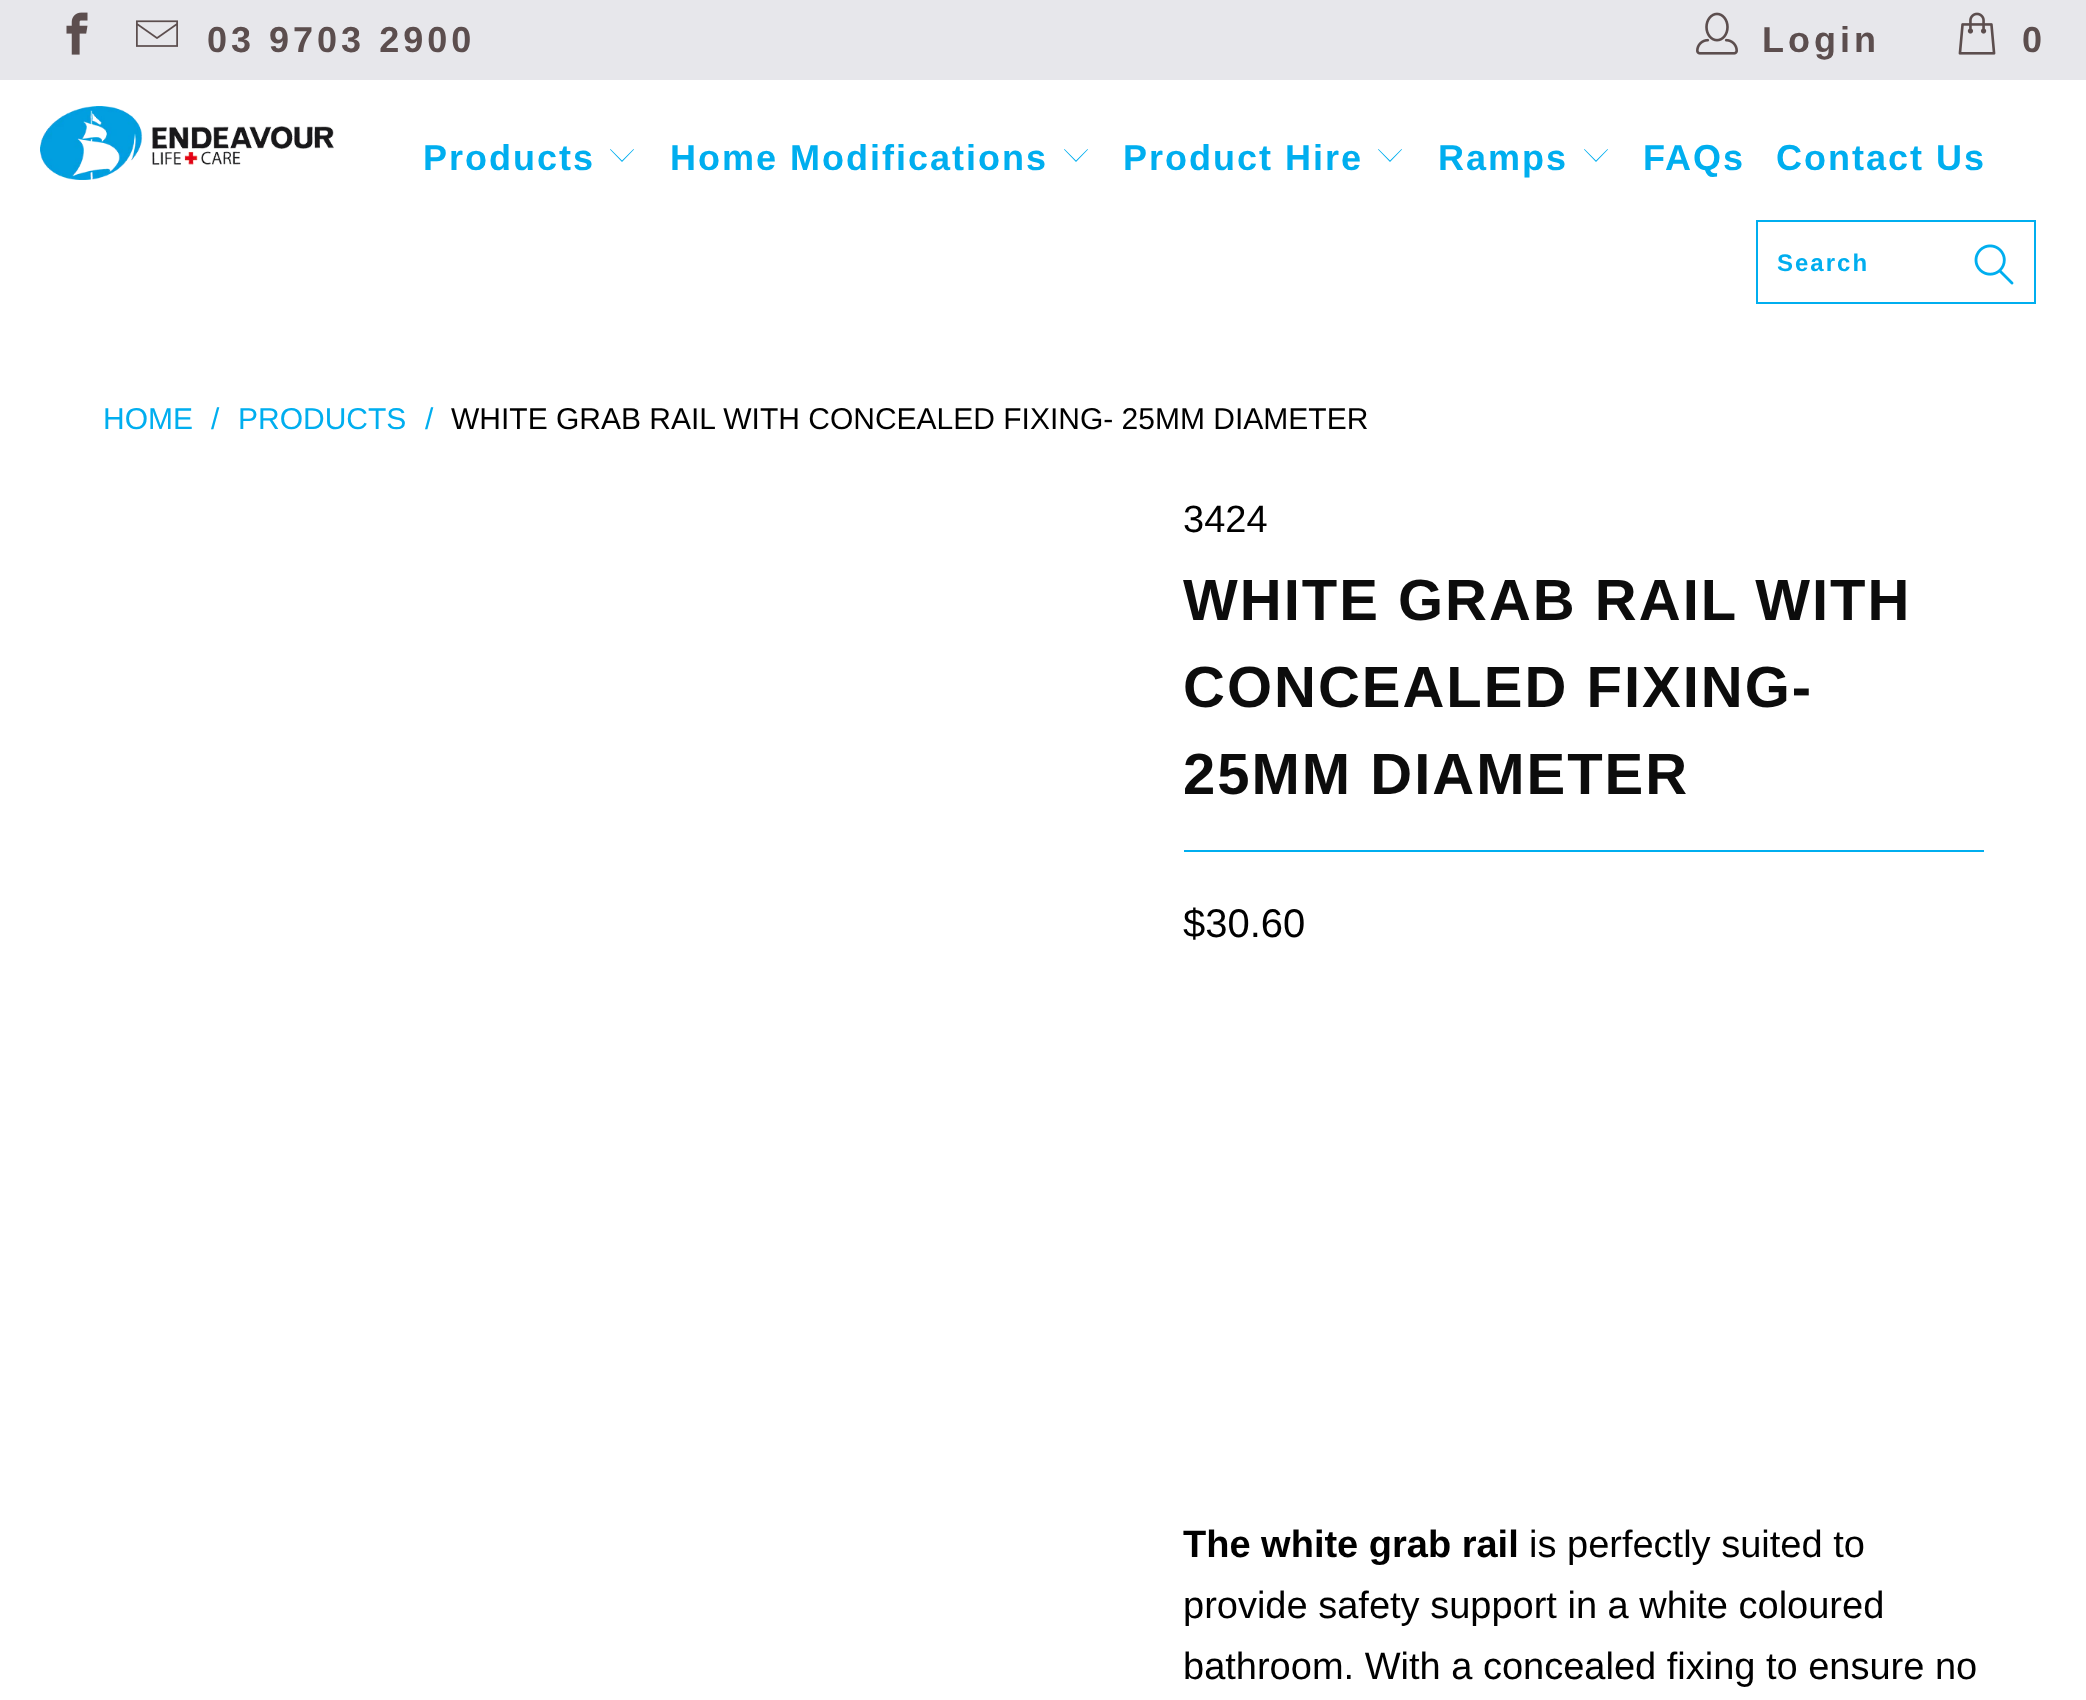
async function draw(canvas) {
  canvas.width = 2086
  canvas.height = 1700
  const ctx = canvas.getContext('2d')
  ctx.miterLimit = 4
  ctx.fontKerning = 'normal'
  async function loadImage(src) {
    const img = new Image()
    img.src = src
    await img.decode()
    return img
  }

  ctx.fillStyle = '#fff'
  ctx.fillRect(0, 0, 2086, 1700)
  ctx.fillStyle = '#e7e7eb'
  ctx.fillRect(0, 0, 2086, 80)
  ctx.drawImage(await loadImage('image0.png'), 66, 12, 22, 43)
  ctx.drawImage(await loadImage('image1.png'), 136, 20, 42, 27)
  ctx.letterSpacing = '4px'
  ctx.font = 'bold 36px Liberation Sans'
  ctx.fillStyle = '#5c4e4e'
  ctx.fillText('03 9703 2900', 207, 52)
  ctx.drawImage(await loadImage('image2.png'), 1696, 12, 42, 43)
  ctx.fillText('Login', 1762, 52)
  ctx.drawImage(await loadImage('image3.png'), 1958, 12, 38, 43)
  ctx.fillText('0', 2022, 52)
  ctx.drawImage(await loadImage('image4.png'), 40, 106, 294, 74)
  ctx.letterSpacing = '2px'
  ctx.fillStyle = '#00aeef'
  ctx.fillText('Products', 423, 170)
  ctx.beginPath()
  ctx.moveTo(622, 162)
  ctx.lineTo(610, 149.5)
  ctx.lineTo(610.5, 149)
  ctx.lineTo(622, 160.5)
  ctx.lineTo(633.5, 149)
  ctx.lineTo(634, 149.5)
  ctx.closePath()
  ctx.fill()
  ctx.fillText('Home Modifications', 670, 170)
  ctx.beginPath()
  ctx.moveTo(1076, 162)
  ctx.lineTo(1064, 149.5)
  ctx.lineTo(1064.5, 149)
  ctx.lineTo(1076, 160.5)
  ctx.lineTo(1087.5, 149)
  ctx.lineTo(1088, 149.5)
  ctx.closePath()
  ctx.fill()
  ctx.fillText('Product Hire', 1123, 170)
  ctx.beginPath()
  ctx.moveTo(1390, 162)
  ctx.lineTo(1378, 149.5)
  ctx.lineTo(1378.5, 149)
  ctx.lineTo(1390, 160.5)
  ctx.lineTo(1401.5, 149)
  ctx.lineTo(1402, 149.5)
  ctx.closePath()
  ctx.fill()
  ctx.fillText('Ramps', 1438, 170)
  ctx.beginPath()
  ctx.moveTo(1596, 162)
  ctx.lineTo(1584, 149.5)
  ctx.lineTo(1584.5, 149)
  ctx.lineTo(1596, 160.5)
  ctx.lineTo(1607.5, 149)
  ctx.lineTo(1608, 149.5)
  ctx.closePath()
  ctx.fill()
  ctx.fillText('FAQs', 1643, 170)
  ctx.fillText('Contact Us', 1776, 170)
  ctx.strokeStyle = '#00aeef'
  ctx.lineWidth = 2
  ctx.strokeRect(1757, 221, 278, 82)
  ctx.font = 'bold 24px Liberation Sans'
  ctx.fillText('Search', 1777, 271)
  ctx.drawImage(await loadImage('image5.png'), 1974, 244, 40, 41)
  ctx.letterSpacing = '0px'
  ctx.font = '30px Liberation Sans'
  ctx.fillText('HOME', 103, 429)
  ctx.fillText('/', 211, 429)
  ctx.fillText('PRODUCTS', 238, 429)
  ctx.fillText('/', 425, 429)
  ctx.fillStyle = '#000'
  ctx.fillText('WHITE GRAB RAIL WITH CONCEALED FIXING- 25MM DIAMETER', 451, 429)
  ctx.font = '38px Liberation Sans'
  ctx.fillText('3424', 1183, 532)
  ctx.letterSpacing = '2px'
  ctx.font = 'bold 58px Liberation Sans'
  ctx.fillStyle = '#0c0c0c'
  ctx.fillText('WHITE GRAB RAIL WITH', 1183, 620)
  ctx.fillText('CONCEALED FIXING-', 1183, 707)
  ctx.fillText('25MM DIAMETER', 1183, 794)
  ctx.fillStyle = '#00aeef'
  ctx.fillRect(1184, 850, 800, 2)
  ctx.letterSpacing = '0px'
  ctx.font = '40px Liberation Sans'
  ctx.fillStyle = '#000'
  ctx.fillText('$30.60', 1183, 937)
  ctx.font = 'bold 38px Liberation Sans'
  ctx.fillText('The white grab rail', 1183, 1557)
  ctx.font = '38px Liberation Sans'
  ctx.fillText('is perfectly suited to', 1529, 1557)
  ctx.fillText('provide safety support in a white coloured', 1183, 1618)
  ctx.fillText('bathroom. With a concealed fixing to ensure no', 1183, 1679)
}

draw(document.querySelector('canvas'))
